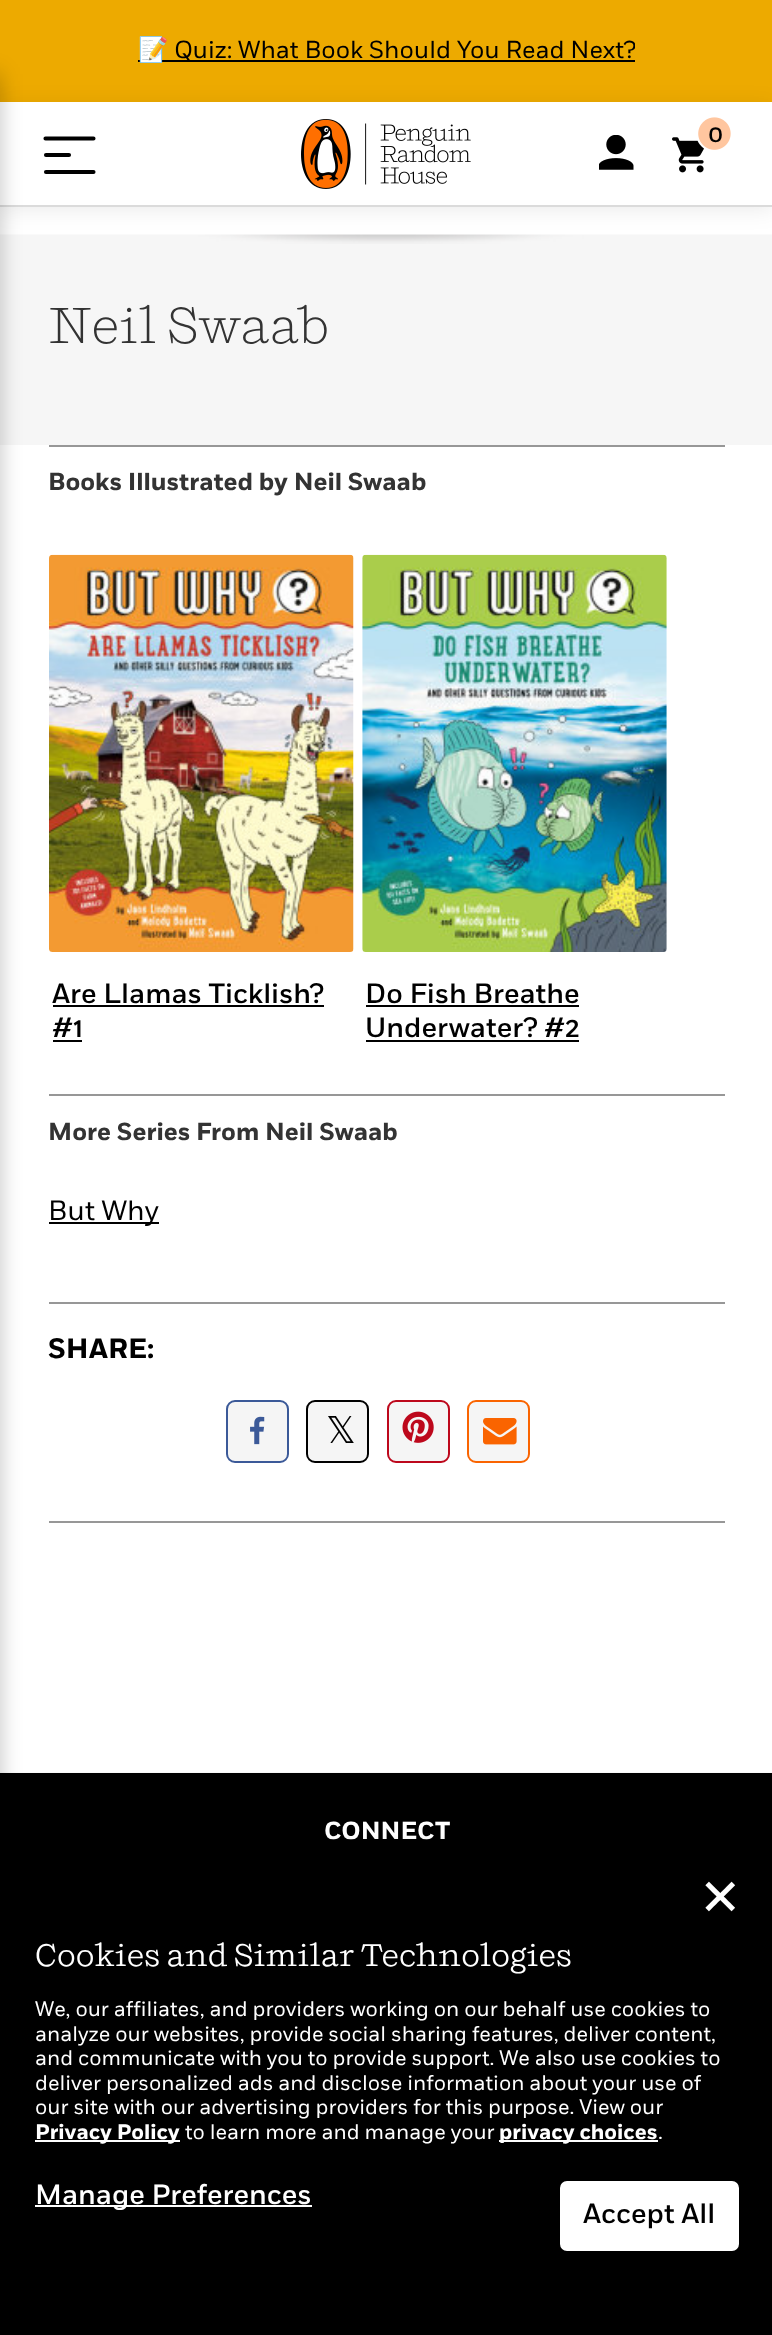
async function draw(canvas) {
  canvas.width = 772
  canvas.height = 2335
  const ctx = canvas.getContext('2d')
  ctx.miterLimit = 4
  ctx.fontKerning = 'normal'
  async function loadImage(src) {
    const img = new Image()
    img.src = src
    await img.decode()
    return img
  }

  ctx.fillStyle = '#fff'
  ctx.fillRect(0, 0, 772, 2335)
  ctx.fillStyle = '#edaa00'
  ctx.fillRect(0, 0, 772, 102)
  ctx.drawImage(await loadImage('image3.png'), 0, 234, 772, 10)
  ctx.fillStyle = '#00000014'
  ctx.filter = 'blur(10.5px)'
  ctx.beginPath()
  ctx.rect(0, 105, 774, 105)
  ctx.fill()
  ctx.filter = 'none'
  ctx.fillStyle = '#fff'
  ctx.fillRect(0, 102, 772, 103)
  ctx.fillStyle = '#dbdbdb'
  ctx.fillRect(0, 205, 772, 2)
  ctx.fillStyle = '#f6f6f6'
  ctx.fillRect(0, 244, 772, 201)
  ctx.drawImage(await loadImage('image9.png'), 0, 1772, 772, 1)
  ctx.fillStyle = '#000'
  ctx.fillRect(0, 1773, 772, 80)
  ctx.fillStyle = '#0000003d'
  ctx.filter = 'blur(10.5px)'
  ctx.beginPath()
  ctx.rect(-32, 74, 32, 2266)
  ctx.fill()
  ctx.filter = 'none'
  ctx.fillStyle = '#000'
  ctx.fillRect(138, 60, 497, 2)
  ctx.save()
  ctx.beginPath()
  ctx.rect(138, 35, 497, 32)
  ctx.clip()
  ctx.font = '24.5px Noto Color Emoji'
  ctx.fillText('📝', 138, 58)
  ctx.font = '24.5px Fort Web'
  ctx.fillText('Quiz: What Book Should You Read Next?', 174, 58)
  ctx.restore()
  ctx.beginPath()
  ctx.moveTo(45.5, 138.5)
  ctx.lineTo(93.5, 138.5)
  ctx.moveTo(46, 155)
  ctx.lineTo(69, 155)
  ctx.moveTo(46, 172)
  ctx.lineTo(93.5, 172)
  ctx.strokeStyle = '#000'
  ctx.lineWidth = 4.1
  ctx.lineCap = 'round'
  ctx.stroke()
  ctx.drawImage(await loadImage('image0.png'), 301, 119, 170, 70)
  ctx.drawImage(await loadImage('image1.png'), 599, 135, 35, 35)
  ctx.drawImage(await loadImage('image2.png'), 672, 117, 59, 56)
  ctx.font = '500 24px Fort Web'
  ctx.fillText('0', 708, 142)
  ctx.font = '300 50.75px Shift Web'
  ctx.fillStyle = '#333'
  ctx.fillText('Neil Swaab', 48, 343)
  ctx.fillStyle = '#979797'
  ctx.fillRect(49, 445, 676, 2)
  ctx.font = 'bold 24.5px Fort Web'
  ctx.fillStyle = '#333'
  ctx.fillText('Books Illustrated by Neil Swaab', 48, 490)
  ctx.drawImage(await loadImage('image4.png'), 49, 554, 305, 398)
  ctx.font = '500 28px Fort Web'
  ctx.fillStyle = '#000'
  ctx.fillText('Are Llamas Ticklish?', 52, 1003)
  ctx.fillRect(53, 1005, 271, 2)
  ctx.fillText('#1', 52, 1037)
  ctx.fillRect(53, 1040, 29, 2)
  ctx.drawImage(await loadImage('image5.png'), 362, 554, 305, 398)
  ctx.fillText('Do Fish Breathe', 365, 1003)
  ctx.fillRect(366, 1005, 213, 2)
  ctx.fillText('Underwater? #2', 365, 1037)
  ctx.fillRect(366, 1040, 213, 2)
  ctx.fillStyle = '#979797'
  ctx.fillRect(49, 1094, 676, 2)
  ctx.font = 'bold 24.5px Fort Web'
  ctx.fillStyle = '#333'
  ctx.fillText('More Series From Neil Swaab', 48, 1140)
  ctx.fillStyle = '#000'
  ctx.fillRect(49, 1222, 110, 2)
  ctx.font = '28px Fort Web'
  ctx.fillText('But Why', 48, 1220)
  ctx.fillStyle = '#979797'
  ctx.fillRect(49, 1302, 676, 2)
  ctx.font = 'bold 28px Fort Web'
  ctx.fillStyle = '#000'
  ctx.fillText('SHARE:', 48, 1358)
  ctx.fillStyle = '#f5f5f5'
  ctx.beginPath()
  ctx.roundRect(227, 1401, 61, 61, 8)
  ctx.fill()
  ctx.strokeStyle = '#3b5998'
  ctx.lineWidth = 2
  ctx.stroke()
  ctx.drawImage(await loadImage('image6.png'), 250, 1416, 15, 29)
  ctx.beginPath()
  ctx.roundRect(307, 1401, 61, 61, 8)
  ctx.fill()
  ctx.strokeStyle = '#000'
  ctx.stroke()
  ctx.font = '37px DejaVu Sans'
  ctx.fillStyle = '#000'
  ctx.fillText('𝕏', 326, 1443)
  ctx.fillStyle = '#f5f5f5'
  ctx.beginPath()
  ctx.roundRect(388, 1401, 61, 61, 8)
  ctx.fill()
  ctx.strokeStyle = '#bd081c'
  ctx.stroke()
  ctx.drawImage(await loadImage('image7.png'), 402, 1411, 32, 32)
  ctx.beginPath()
  ctx.roundRect(468, 1401, 61, 61, 8)
  ctx.fill()
  ctx.strokeStyle = '#fa6400'
  ctx.stroke()
  ctx.drawImage(await loadImage('image8.png'), 483, 1418, 34, 27)
  ctx.fillStyle = '#979797'
  ctx.fillRect(49, 1521, 676, 2)
  ctx.font = 'bold 24.5px Fort Web'
  ctx.fillStyle = '#fff'
  ctx.fillText('CONNECT', 324, 1839)
  ctx.fillStyle = '#00000029'
  ctx.filter = 'blur(5px)'
  ctx.beginPath()
  ctx.rect(0, 1843, 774, 483)
  ctx.fill()
  ctx.filter = 'none'
  ctx.fillStyle = '#000'
  ctx.fillRect(0, 1853, 772, 482)
  ctx.font = '50.75px DejaVu Sans'
  ctx.fillStyle = '#fff'
  ctx.fillText('✕', 699, 1915)
  ctx.font = '31.5px Shift Web'
  ctx.fillText('Cookies and Similar Technologies', 35, 1966)
  ctx.font = '21px Fort Web'
  ctx.fillText('We, our affiliates, and providers working on our behalf use cookies to', 35, 2016)
  ctx.fillText('analyze our websites, provide social sharing features, deliver content,', 35, 2041)
  ctx.fillText('and communicate with you to provide support. We also use cookies to', 35, 2065)
  ctx.fillText('deliver personalized ads and disclose information about your use of', 35, 2090)
  ctx.fillText('our site with our advertising providers for this purpose. View our', 35, 2114)
  ctx.fillRect(35, 2140, 145, 2)
  ctx.font = 'bold 21px Fort Web'
  ctx.fillText('Privacy Policy', 35, 2139)
  ctx.font = '21px Fort Web'
  ctx.fillText('to learn more and manage your', 185, 2139)
  ctx.fillRect(499, 2140, 159, 2)
  ctx.font = 'bold 21px Fort Web'
  ctx.fillText('privacy choices', 499, 2139)
  ctx.font = '21px Fort Web'
  ctx.fillText('.', 658, 2139)
  ctx.fillRect(35, 2205, 277, 2)
  ctx.font = '500 28px Fort Web'
  ctx.fillText('Manage Preferences', 35, 2204)
  ctx.beginPath()
  ctx.roundRect(562, 2183, 175, 66, 5)
  ctx.fill()
  ctx.strokeStyle = '#fff'
  ctx.lineWidth = 4
  ctx.stroke()
  ctx.fillStyle = '#000'
  ctx.fillText('Accept All', 583, 2223)
}

draw(document.querySelector('canvas'))
